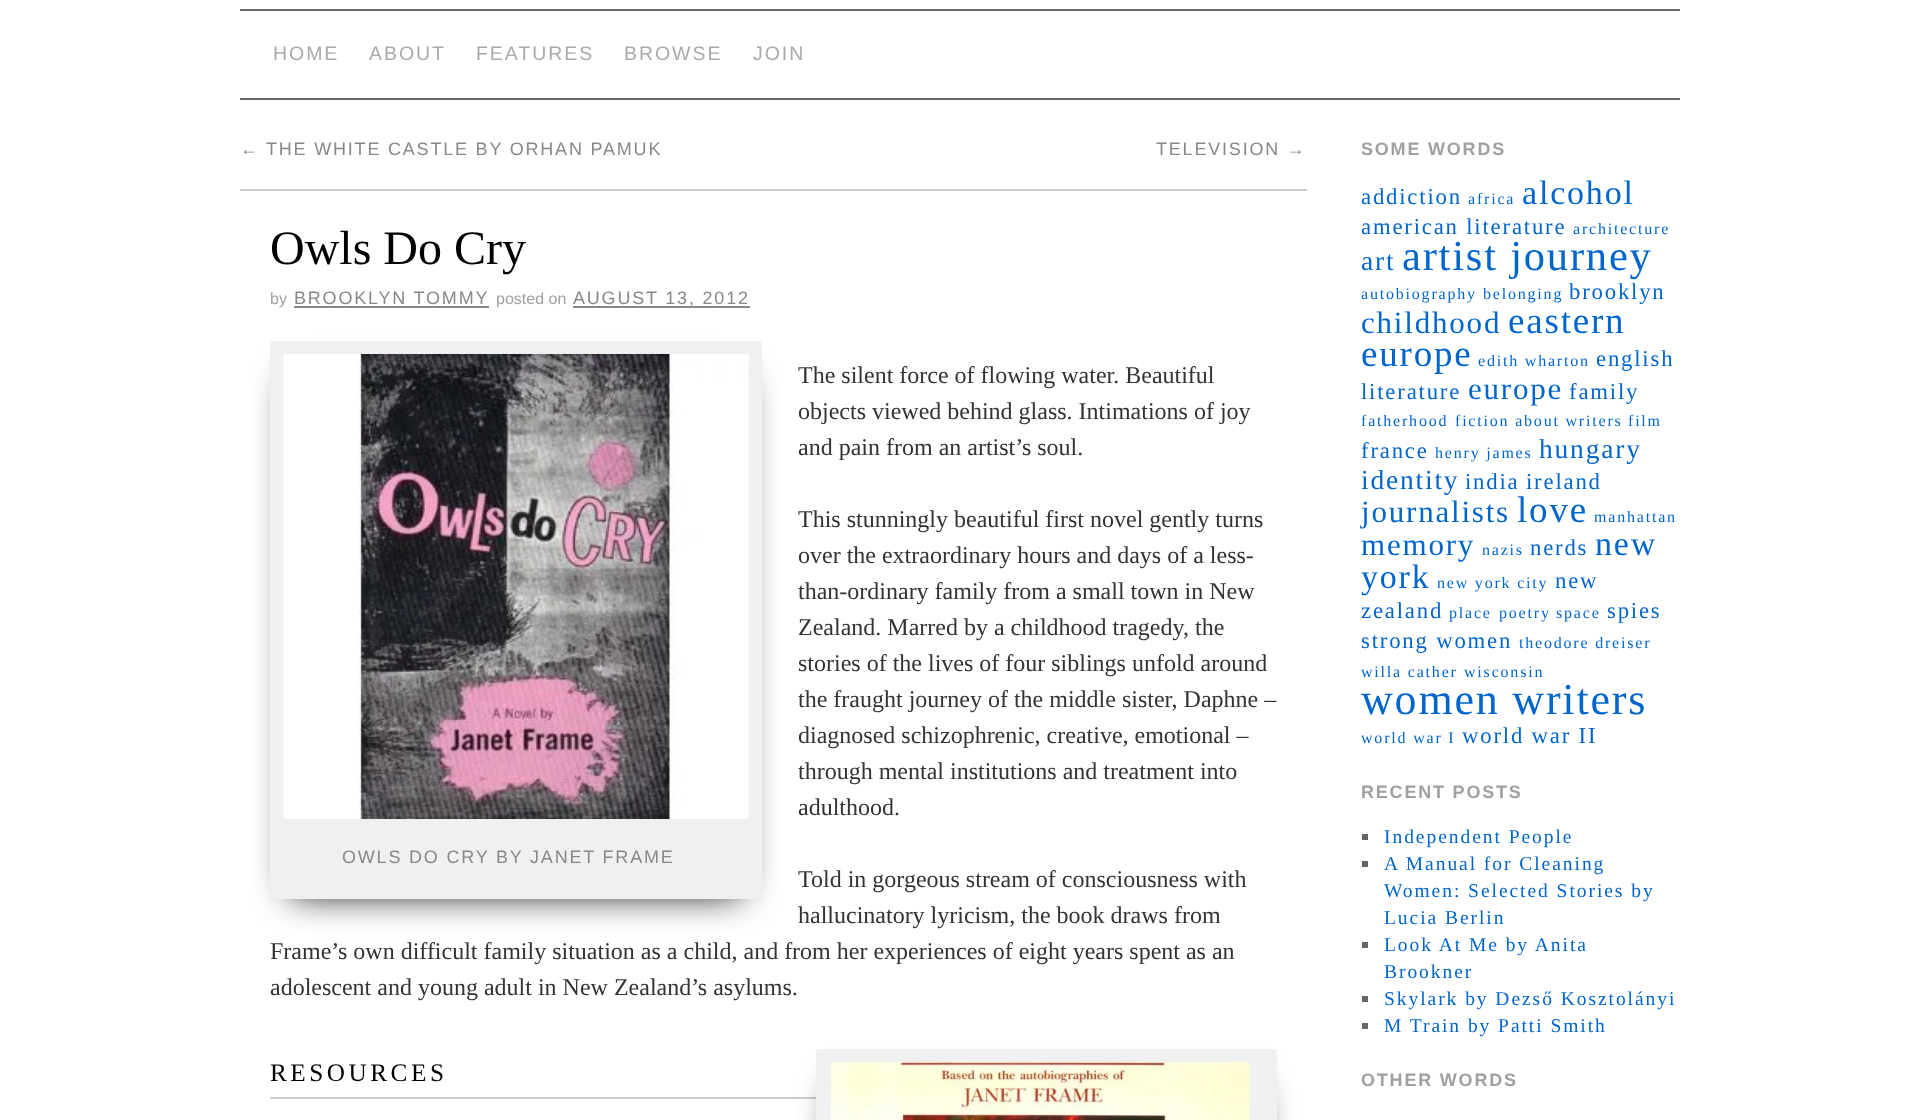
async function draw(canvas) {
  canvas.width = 1919
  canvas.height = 1120
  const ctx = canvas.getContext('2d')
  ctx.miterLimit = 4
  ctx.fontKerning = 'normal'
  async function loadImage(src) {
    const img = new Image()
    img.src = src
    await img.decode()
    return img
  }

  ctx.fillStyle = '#fff'
  ctx.fillRect(0, 0, 1919, 1120)
  ctx.fillStyle = '#666'
  ctx.fillRect(240, 9, 1440, 2)
  ctx.fillRect(240, 98, 1440, 2)
  ctx.letterSpacing = '1.95px'
  ctx.font = '19.5px Liberation Sans'
  ctx.fillStyle = '#aaa'
  ctx.fillText('HOME', 273, 60)
  ctx.fillText('ABOUT', 369, 60)
  ctx.fillText('FEATURES', 476, 60)
  ctx.fillText('BROWSE', 624, 60)
  ctx.fillText('JOIN', 753, 60)
  ctx.letterSpacing = '1.8px'
  ctx.font = '18px Liberation Sans'
  ctx.fillStyle = '#888'
  ctx.fillText('←', 240, 155)
  ctx.fillText('THE WHITE CASTLE BY ORHAN PAMUK', 266, 155)
  ctx.fillText('TELEVISION →', 1156, 155)
  ctx.fillStyle = '#ccc'
  ctx.fillRect(240, 189, 1067, 2)
  ctx.letterSpacing = '0px'
  ctx.font = '48px Liberation Serif'
  ctx.fillStyle = '#000'
  ctx.fillText('Owls Do Cry', 270, 264)
  ctx.font = '16px Liberation Sans'
  ctx.fillStyle = '#a0a0a0'
  ctx.fillText('by', 270, 304)
  ctx.letterSpacing = '1.8px'
  ctx.font = '18px Liberation Sans'
  ctx.fillStyle = '#888'
  ctx.fillText('BROOKLYN TOMMY', 294, 304)
  ctx.fillRect(294, 306, 195, 2)
  ctx.letterSpacing = '0px'
  ctx.font = '16px Liberation Sans'
  ctx.fillStyle = '#a0a0a0'
  ctx.fillText('posted on', 496, 304)
  ctx.fillStyle = '#888'
  ctx.fillRect(573, 306, 177, 2)
  ctx.letterSpacing = '1.8px'
  ctx.font = '18px Liberation Sans'
  ctx.fillText('AUGUST 13, 2012', 573, 304)
  ctx.letterSpacing = '0px'
  ctx.font = '24px Liberation Serif'
  ctx.fillStyle = '#333'
  ctx.fillText('The silent force of flowing water. Beautiful', 798, 383)
  ctx.fillText('objects viewed behind glass. Intimations of joy', 798, 419)
  ctx.fillText('and pain from an artist’s soul.', 798, 455)
  ctx.fillText('This stunningly beautiful first novel gently turns', 798, 527)
  ctx.fillText('over the extraordinary hours and days of a less-', 798, 563)
  ctx.fillText('than-ordinary family from a small town in New', 798, 599)
  ctx.fillText('Zealand. Marred by a childhood tragedy, the', 798, 635)
  ctx.fillText('stories of the lives of four siblings unfold around', 798, 671)
  ctx.fillText('the fraught journey of the middle sister, Daphne –', 798, 707)
  ctx.fillText('diagnosed schizophrenic, creative, emotional –', 798, 743)
  ctx.fillText('through mental institutions and treatment into', 798, 779)
  ctx.fillText('adulthood.', 798, 815)
  ctx.fillStyle = '#000'
  ctx.filter = 'blur(18px)'
  ctx.beginPath()
  ctx.rect(291, 378, 450, 516)
  ctx.fill()
  ctx.filter = 'none'
  ctx.fillStyle = '#f0f0f0'
  ctx.fillRect(270, 341, 492, 558)
  ctx.drawImage(await loadImage('image0.png'), 283, 354, 466, 465)
  ctx.letterSpacing = '1.8px'
  ctx.font = '18px Liberation Sans'
  ctx.fillStyle = '#888'
  ctx.fillText('OWLS DO CRY BY JANET FRAME', 342, 863)
  ctx.letterSpacing = '0px'
  ctx.font = '24px Liberation Serif'
  ctx.fillStyle = '#333'
  ctx.fillText('Told in gorgeous stream of consciousness with', 798, 887)
  ctx.fillText('hallucinatory lyricism, the book draws from', 798, 923)
  ctx.fillText('Frame’s own difficult family situation as a child, and from her experiences of eight years spent as an', 270, 959)
  ctx.fillText('adolescent and young adult in New Zealand’s asylums.', 270, 995)
  ctx.fillStyle = '#ccc'
  ctx.fillRect(270, 1097, 546, 2)
  ctx.letterSpacing = '3.5px'
  ctx.font = '25.25px Liberation Serif'
  ctx.fillStyle = '#000'
  ctx.fillText('RESOURCES', 270, 1081)
  ctx.filter = 'blur(18px)'
  ctx.beginPath()
  ctx.rect(837, 1086, 419, 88)
  ctx.fill()
  ctx.filter = 'none'
  ctx.fillStyle = '#f0f0f0'
  ctx.fillRect(816, 1049, 461, 71)
  ctx.drawImage(await loadImage('image1.png'), 831, 1062, 419, 58)
  ctx.letterSpacing = '1.8px'
  ctx.font = 'bold 18px Liberation Sans'
  ctx.fillStyle = '#a0a0a0'
  ctx.fillText('SOME WORDS', 1361, 155)
  ctx.font = '22.75px Liberation Serif'
  ctx.fillStyle = '#06c'
  ctx.fillText('addiction', 1361, 204)
  ctx.font = '16px Liberation Serif'
  ctx.fillText('africa', 1468, 204)
  ctx.font = '34px Liberation Serif'
  ctx.fillText('alcohol', 1522, 204)
  ctx.font = '22.75px Liberation Serif'
  ctx.fillText('american literature', 1361, 234)
  ctx.font = '16px Liberation Serif'
  ctx.fillText('architecture', 1573, 234)
  ctx.font = '27.5px Liberation Serif'
  ctx.fillText('art', 1361, 270)
  ctx.font = '42.5px Liberation Serif'
  ctx.fillText('artist journey', 1402, 270)
  ctx.font = '16px Liberation Serif'
  ctx.fillText('autobiography', 1361, 299)
  ctx.fillText('belonging', 1483, 299)
  ctx.font = '22.75px Liberation Serif'
  ctx.fillText('brooklyn', 1569, 299)
  ctx.font = '31px Liberation Serif'
  ctx.fillText('childhood', 1361, 333)
  ctx.font = '37px Liberation Serif'
  ctx.fillText('eastern', 1508, 333)
  ctx.fillText('europe', 1361, 366)
  ctx.font = '16px Liberation Serif'
  ctx.fillText('edith wharton', 1478, 366)
  ctx.font = '22.75px Liberation Serif'
  ctx.fillText('english', 1596, 366)
  ctx.fillText('literature', 1361, 399)
  ctx.font = '31px Liberation Serif'
  ctx.fillText('europe', 1468, 399)
  ctx.font = '22.75px Liberation Serif'
  ctx.fillText('family', 1569, 399)
  ctx.font = '16px Liberation Serif'
  ctx.fillText('fatherhood', 1361, 426)
  ctx.fillText('fiction about writers', 1455, 426)
  ctx.fillText('film', 1628, 426)
  ctx.font = '22.75px Liberation Serif'
  ctx.fillText('france', 1361, 458)
  ctx.font = '16px Liberation Serif'
  ctx.fillText('henry james', 1435, 458)
  ctx.font = '27.5px Liberation Serif'
  ctx.fillText('hungary', 1539, 458)
  ctx.fillText('identity', 1361, 489)
  ctx.font = '22.75px Liberation Serif'
  ctx.fillText('india', 1465, 489)
  ctx.fillText('ireland', 1526, 489)
  ctx.font = '31px Liberation Serif'
  ctx.fillText('journalists', 1361, 522)
  ctx.font = '37px Liberation Serif'
  ctx.fillText('love', 1517, 522)
  ctx.font = '16px Liberation Serif'
  ctx.fillText('manhattan', 1594, 522)
  ctx.font = '31px Liberation Serif'
  ctx.fillText('memory', 1361, 555)
  ctx.font = '16px Liberation Serif'
  ctx.fillText('nazis', 1482, 555)
  ctx.font = '22.75px Liberation Serif'
  ctx.fillText('nerds', 1530, 555)
  ctx.font = '34px Liberation Serif'
  ctx.fillText('new', 1595, 555)
  ctx.fillText('york', 1361, 588)
  ctx.font = '16px Liberation Serif'
  ctx.fillText('new york city', 1437, 588)
  ctx.font = '22.75px Liberation Serif'
  ctx.fillText('new', 1555, 588)
  ctx.fillText('zealand', 1361, 618)
  ctx.font = '16px Liberation Serif'
  ctx.fillText('place', 1449, 618)
  ctx.fillText('poetry', 1499, 618)
  ctx.fillText('space', 1556, 618)
  ctx.font = '22.75px Liberation Serif'
  ctx.fillText('spies', 1607, 618)
  ctx.fillText('strong women', 1361, 648)
  ctx.font = '16px Liberation Serif'
  ctx.fillText('theodore dreiser', 1519, 648)
  ctx.fillText('willa cather', 1361, 677)
  ctx.fillText('wisconsin', 1464, 677)
  ctx.font = '44px Liberation Serif'
  ctx.fillText('women writers', 1361, 714)
  ctx.font = '16px Liberation Serif'
  ctx.fillText('world war I', 1361, 743)
  ctx.font = '22.75px Liberation Serif'
  ctx.fillText('world war II', 1462, 743)
  ctx.font = 'bold 18px Liberation Sans'
  ctx.fillStyle = '#a0a0a0'
  ctx.fillText('RECENT POSTS', 1361, 798)
  ctx.fillStyle = '#666'
  ctx.fillRect(1362, 834, 6, 6)
  ctx.letterSpacing = '1.95px'
  ctx.font = '19.5px Liberation Serif'
  ctx.fillStyle = '#06c'
  ctx.fillText('Independent People', 1384, 843)
  ctx.fillStyle = '#666'
  ctx.fillRect(1362, 861, 6, 6)
  ctx.fillStyle = '#06c'
  ctx.fillText('A Manual for Cleaning', 1384, 870)
  ctx.fillText('Women: Selected Stories by', 1384, 897)
  ctx.fillText('Lucia Berlin', 1384, 924)
  ctx.fillStyle = '#666'
  ctx.fillRect(1362, 942, 6, 6)
  ctx.fillStyle = '#06c'
  ctx.fillText('Look At Me by Anita', 1384, 951)
  ctx.fillText('Brookner', 1384, 978)
  ctx.fillStyle = '#666'
  ctx.fillRect(1362, 996, 6, 6)
  ctx.fillStyle = '#06c'
  ctx.fillText('Skylark by Dezső Kosztolányi', 1384, 1005)
  ctx.fillStyle = '#666'
  ctx.fillRect(1362, 1023, 6, 6)
  ctx.fillStyle = '#06c'
  ctx.fillText('M Train by Patti Smith', 1384, 1032)
  ctx.letterSpacing = '1.8px'
  ctx.font = 'bold 18px Liberation Sans'
  ctx.fillStyle = '#a0a0a0'
  ctx.fillText('OTHER WORDS', 1361, 1086)
}

draw(document.querySelector('canvas'))
